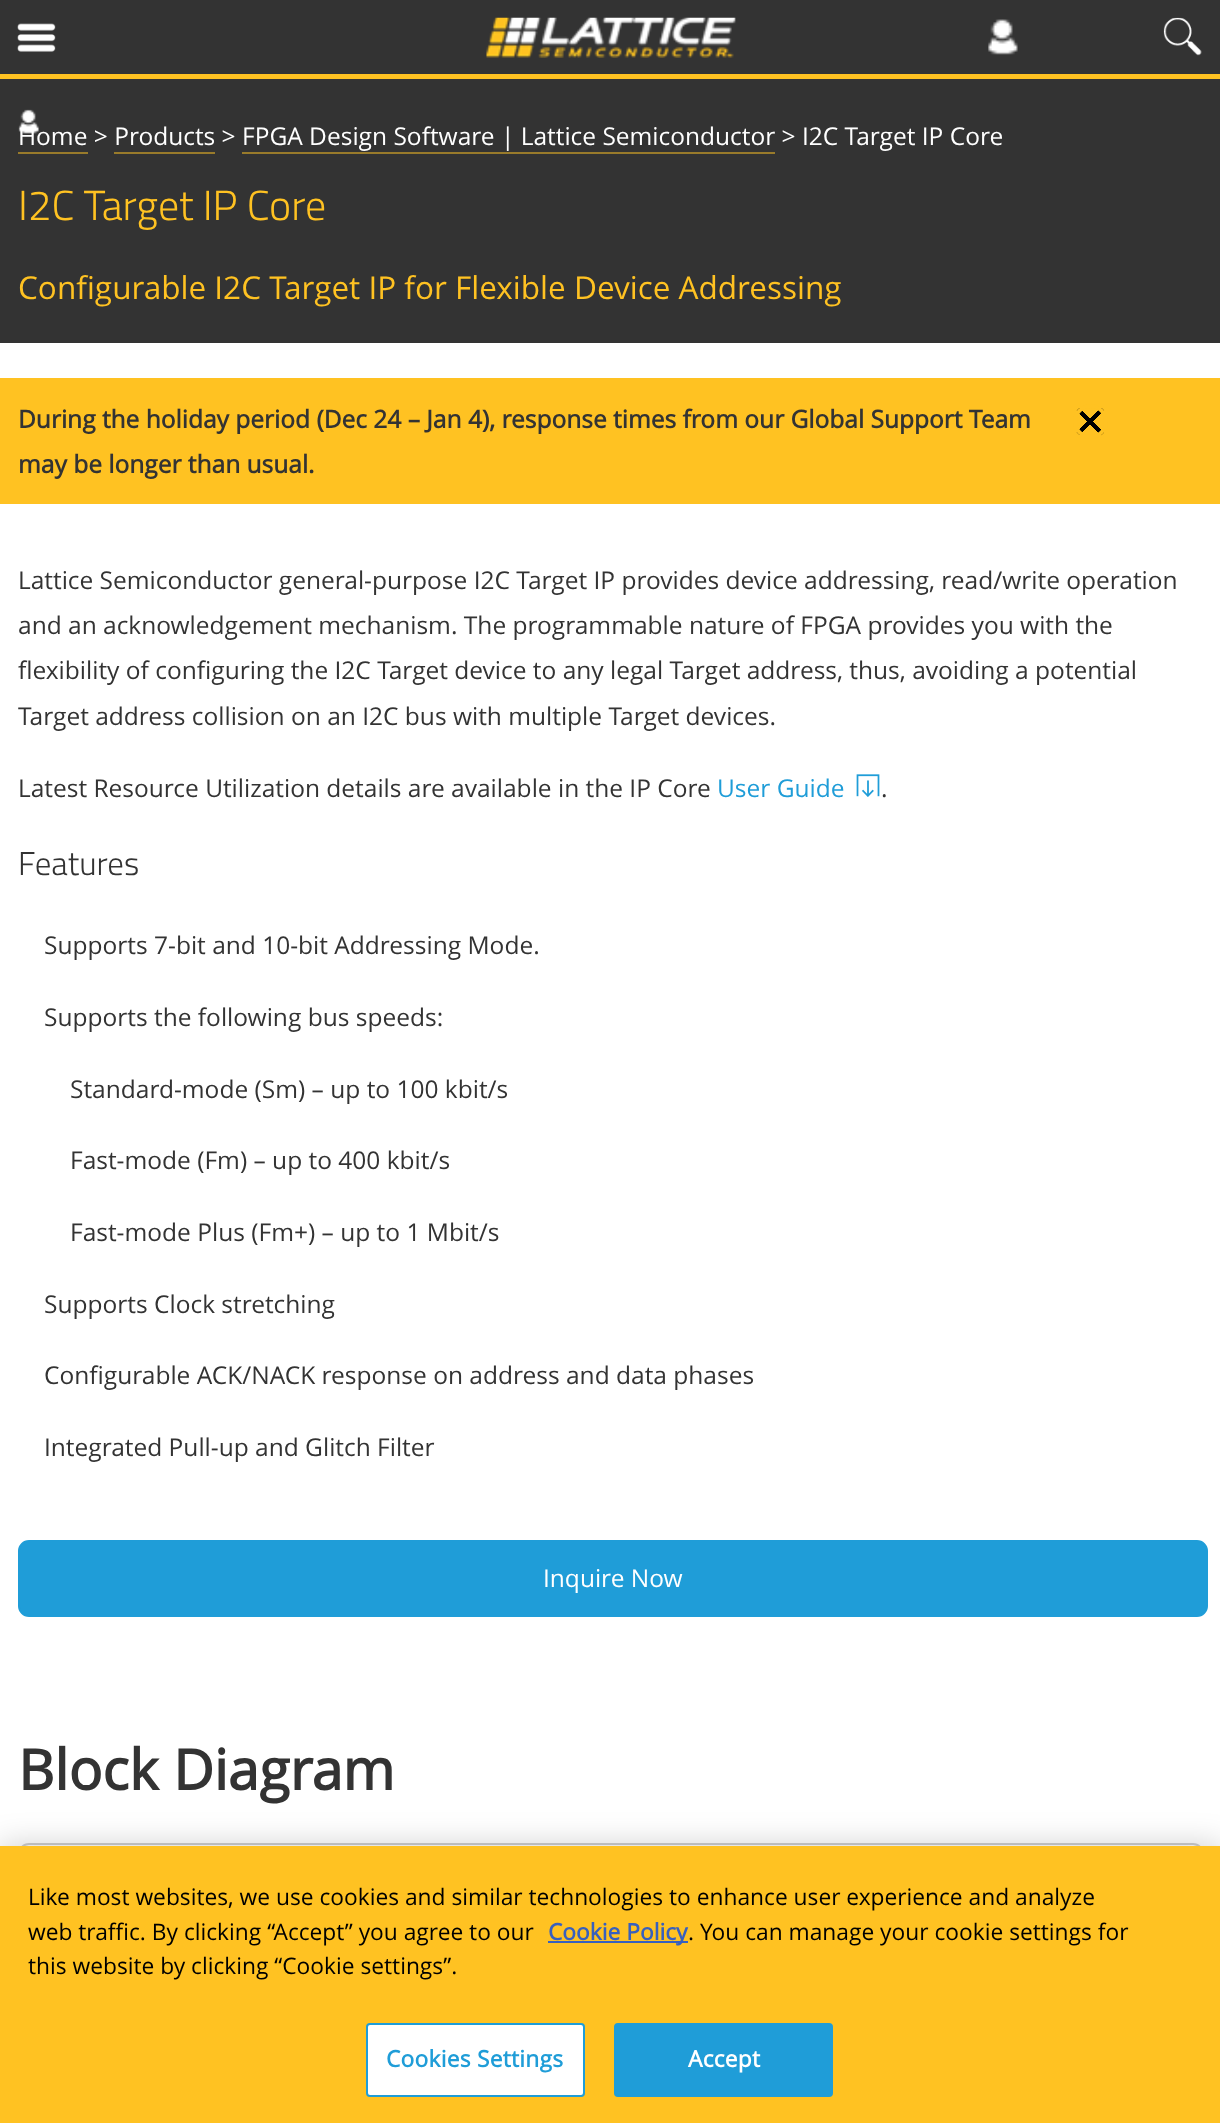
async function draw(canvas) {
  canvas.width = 1220
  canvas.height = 2123
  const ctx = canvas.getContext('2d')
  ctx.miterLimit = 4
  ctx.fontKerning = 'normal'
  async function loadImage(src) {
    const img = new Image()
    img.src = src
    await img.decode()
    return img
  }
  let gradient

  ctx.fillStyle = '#fff'
  ctx.fillRect(0, 0, 1220, 2123)
  ctx.fillStyle = '#333'
  ctx.fillRect(0, 0, 1220, 74)
  ctx.fillStyle = '#ffc222'
  ctx.fillRect(0, 74, 1220, 5)
  ctx.drawImage(await loadImage('image0.png'), 17, 23, 39, 29)
  ctx.drawImage(await loadImage('image1.png'), 486, 17, 250, 41)
  ctx.drawImage(await loadImage('image2.png'), 988, 19, 30, 36)
  ctx.drawImage(await loadImage('image3.png'), 1163, 17, 39, 39)
  ctx.fillStyle = '#333'
  ctx.fillRect(0, 79, 1220, 264)
  ctx.font = '24.5px Open Sans'
  ctx.fillStyle = '#fff'
  ctx.fillText('Home > Products > FPGA Design Software | Lattice Semiconductor > I2C Target IP Core', 18, 145)
  ctx.drawImage(await loadImage('image4.png'), 18, 109, 21, 25)
  ctx.fillStyle = '#997b2b'
  ctx.fillRect(18, 152, 70, 2)
  ctx.fillRect(114, 152, 101, 2)
  ctx.fillRect(242, 152, 533, 2)
  ctx.font = '300 42px Titillium Web'
  ctx.fillStyle = '#ffc222'
  ctx.fillText('I2C Target IP Core', 18, 220)
  ctx.font = '31.5px Open Sans'
  ctx.fillText('Configurable I2C Target IP for Flexible Device Addressing', 18, 299)
  ctx.fillRect(0, 378, 1220, 126)
  ctx.font = 'bold 24.5px Open Sans'
  ctx.fillStyle = '#333'
  ctx.fillText('During the holiday period (Dec 24 – Jan 4), response times from our Global Support Team', 18, 428)
  ctx.fillText('may be longer than usual.', 18, 473)
  ctx.save()
  ctx.beginPath()
  ctx.roundRect(1073, 404, 35, 35, 17.5)
  ctx.clip()
  gradient = ctx.createLinearGradient(1076, 436, 1104, 408)
  gradient.addColorStop(0, '#ffc222')
  gradient.addColorStop(0.46, '#ffc222')
  gradient.addColorStop(0.46, '#000')
  gradient.addColorStop(0.56, '#000')
  gradient.addColorStop(0.56, '#ffc222')
  gradient.addColorStop(1, '#ffc222')
  ctx.fillStyle = gradient
  ctx.fillRect(1076, 408, 28, 28)
  gradient = ctx.createLinearGradient(1104, 436, 1076, 408)
  gradient.addColorStop(0, '#00000000')
  gradient.addColorStop(0.46, '#00000000')
  gradient.addColorStop(0.46, '#000')
  gradient.addColorStop(0.56, '#000')
  gradient.addColorStop(0.56, '#00000000')
  gradient.addColorStop(1, '#00000000')
  ctx.fillStyle = gradient
  ctx.fillRect(1076, 408, 28, 27)
  ctx.restore()
  ctx.beginPath()
  ctx.arc(1090.5, 421.5, 15.5, 0, 2 * Math.PI)
  ctx.strokeStyle = '#ffc222'
  ctx.lineWidth = 4
  ctx.stroke()
  ctx.font = '24.5px Open Sans'
  ctx.fillText('Lattice Semiconductor general-purpose I2C Target IP provides device addressing, read/write operation', 18, 589)
  ctx.fillText('and an acknowledgement mechanism. The programmable nature of FPGA provides you with the', 18, 634)
  ctx.fillText('flexibility of configuring the I2C Target device to any legal Target address, thus, avoiding a potential', 18, 679)
  ctx.save()
  ctx.beginPath()
  ctx.rect(18, 557, 1186, 280)
  ctx.clip()
  ctx.fillText('Target address collision on an I2C bus with multiple Target devices.', 18, 725)
  ctx.restore()
  ctx.fillText('Latest Resource Utilization details are available in the IP Core', 18, 797)
  ctx.fillStyle = '#1f9dd8'
  ctx.fillText('User Guide', 717, 797)
  ctx.drawImage(await loadImage('image5.png'), 856, 774, 24, 23)
  ctx.fillStyle = '#333'
  ctx.fillText('.', 881, 797)
  ctx.font = '300 33px Titillium Web'
  ctx.fillText('Features', 18, 875)
  ctx.font = '24.5px Open Sans'
  ctx.fillText('Supports 7-bit and 10-bit Addressing Mode.', 44, 954)
  ctx.fillText('Supports the following bus speeds:', 44, 1026)
  ctx.fillText('Standard-mode (Sm) – up to 100 kbit/s', 70, 1098)
  ctx.fillText('Fast-mode (Fm) – up to 400 kbit/s', 70, 1169)
  ctx.fillText('Fast-mode Plus (Fm+) – up to 1 Mbit/s', 70, 1241)
  ctx.fillText('Supports Clock stretching', 44, 1313)
  ctx.fillText('Configurable ACK/NACK response on address and data phases', 44, 1384)
  ctx.fillText('Integrated Pull-up and Glitch Filter', 44, 1456)
  ctx.fillStyle = '#1f9dd8'
  ctx.beginPath()
  ctx.roundRect(19, 1541, 1188, 75, 10)
  ctx.fill()
  ctx.strokeStyle = '#1f9dd8'
  ctx.lineWidth = 2
  ctx.stroke()
  ctx.fillStyle = '#fff'
  ctx.fillText('Inquire Now', 543, 1587)
  ctx.font = 'bold 56px Open Sans'
  ctx.fillStyle = '#333'
  ctx.fillText('Block Diagram', 18, 1790)
  ctx.beginPath()
  ctx.roundRect(19, 1844, 1184, 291, 10)
  ctx.strokeStyle = '#cfcfcf'
  ctx.stroke()
  ctx.fillStyle = '#00000033'
  ctx.filter = 'blur(16px)'
  ctx.beginPath()
  ctx.rect(0, 1846, 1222, 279)
  ctx.fill()
  ctx.filter = 'none'
  ctx.fillStyle = '#ffc222'
  ctx.fillRect(0, 1846, 1220, 277)
  ctx.font = '22.75px Open Sans'
  ctx.fillStyle = '#000'
  ctx.fillText('Like most websites, we use cookies and similar technologies to enhance user experience and analyze', 28, 1905)
  ctx.fillText('web traffic. By clicking “Accept” you agree to our', 28, 1940)
  ctx.fillStyle = '#3860be'
  ctx.fillRect(548, 1941, 140, 2)
  ctx.font = 'bold 22.75px Open Sans'
  ctx.fillText('Cookie Policy', 548, 1940)
  ctx.font = '22.75px Open Sans'
  ctx.fillStyle = '#000'
  ctx.fillText('. You can manage your cookie settings for', 688, 1940)
  ctx.fillText('this website by clicking “Cookie settings”.', 28, 1974)
  ctx.fillStyle = '#fff'
  ctx.beginPath()
  ctx.roundRect(367, 2024, 217, 72, 3)
  ctx.fill()
  ctx.strokeStyle = '#1f9dd8'
  ctx.stroke()
  ctx.letterSpacing = '0.25px'
  ctx.font = 'bold 22.75px Open Sans'
  ctx.fillStyle = '#1f9dd8'
  ctx.fillText('Cookies Settings', 386, 2067)
  ctx.beginPath()
  ctx.roundRect(615, 2024, 217, 72, 3)
  ctx.fill()
  ctx.stroke()
  ctx.fillStyle = '#fff'
  ctx.fillText('Accept', 688, 2067)
}

draw(document.querySelector('canvas'))
